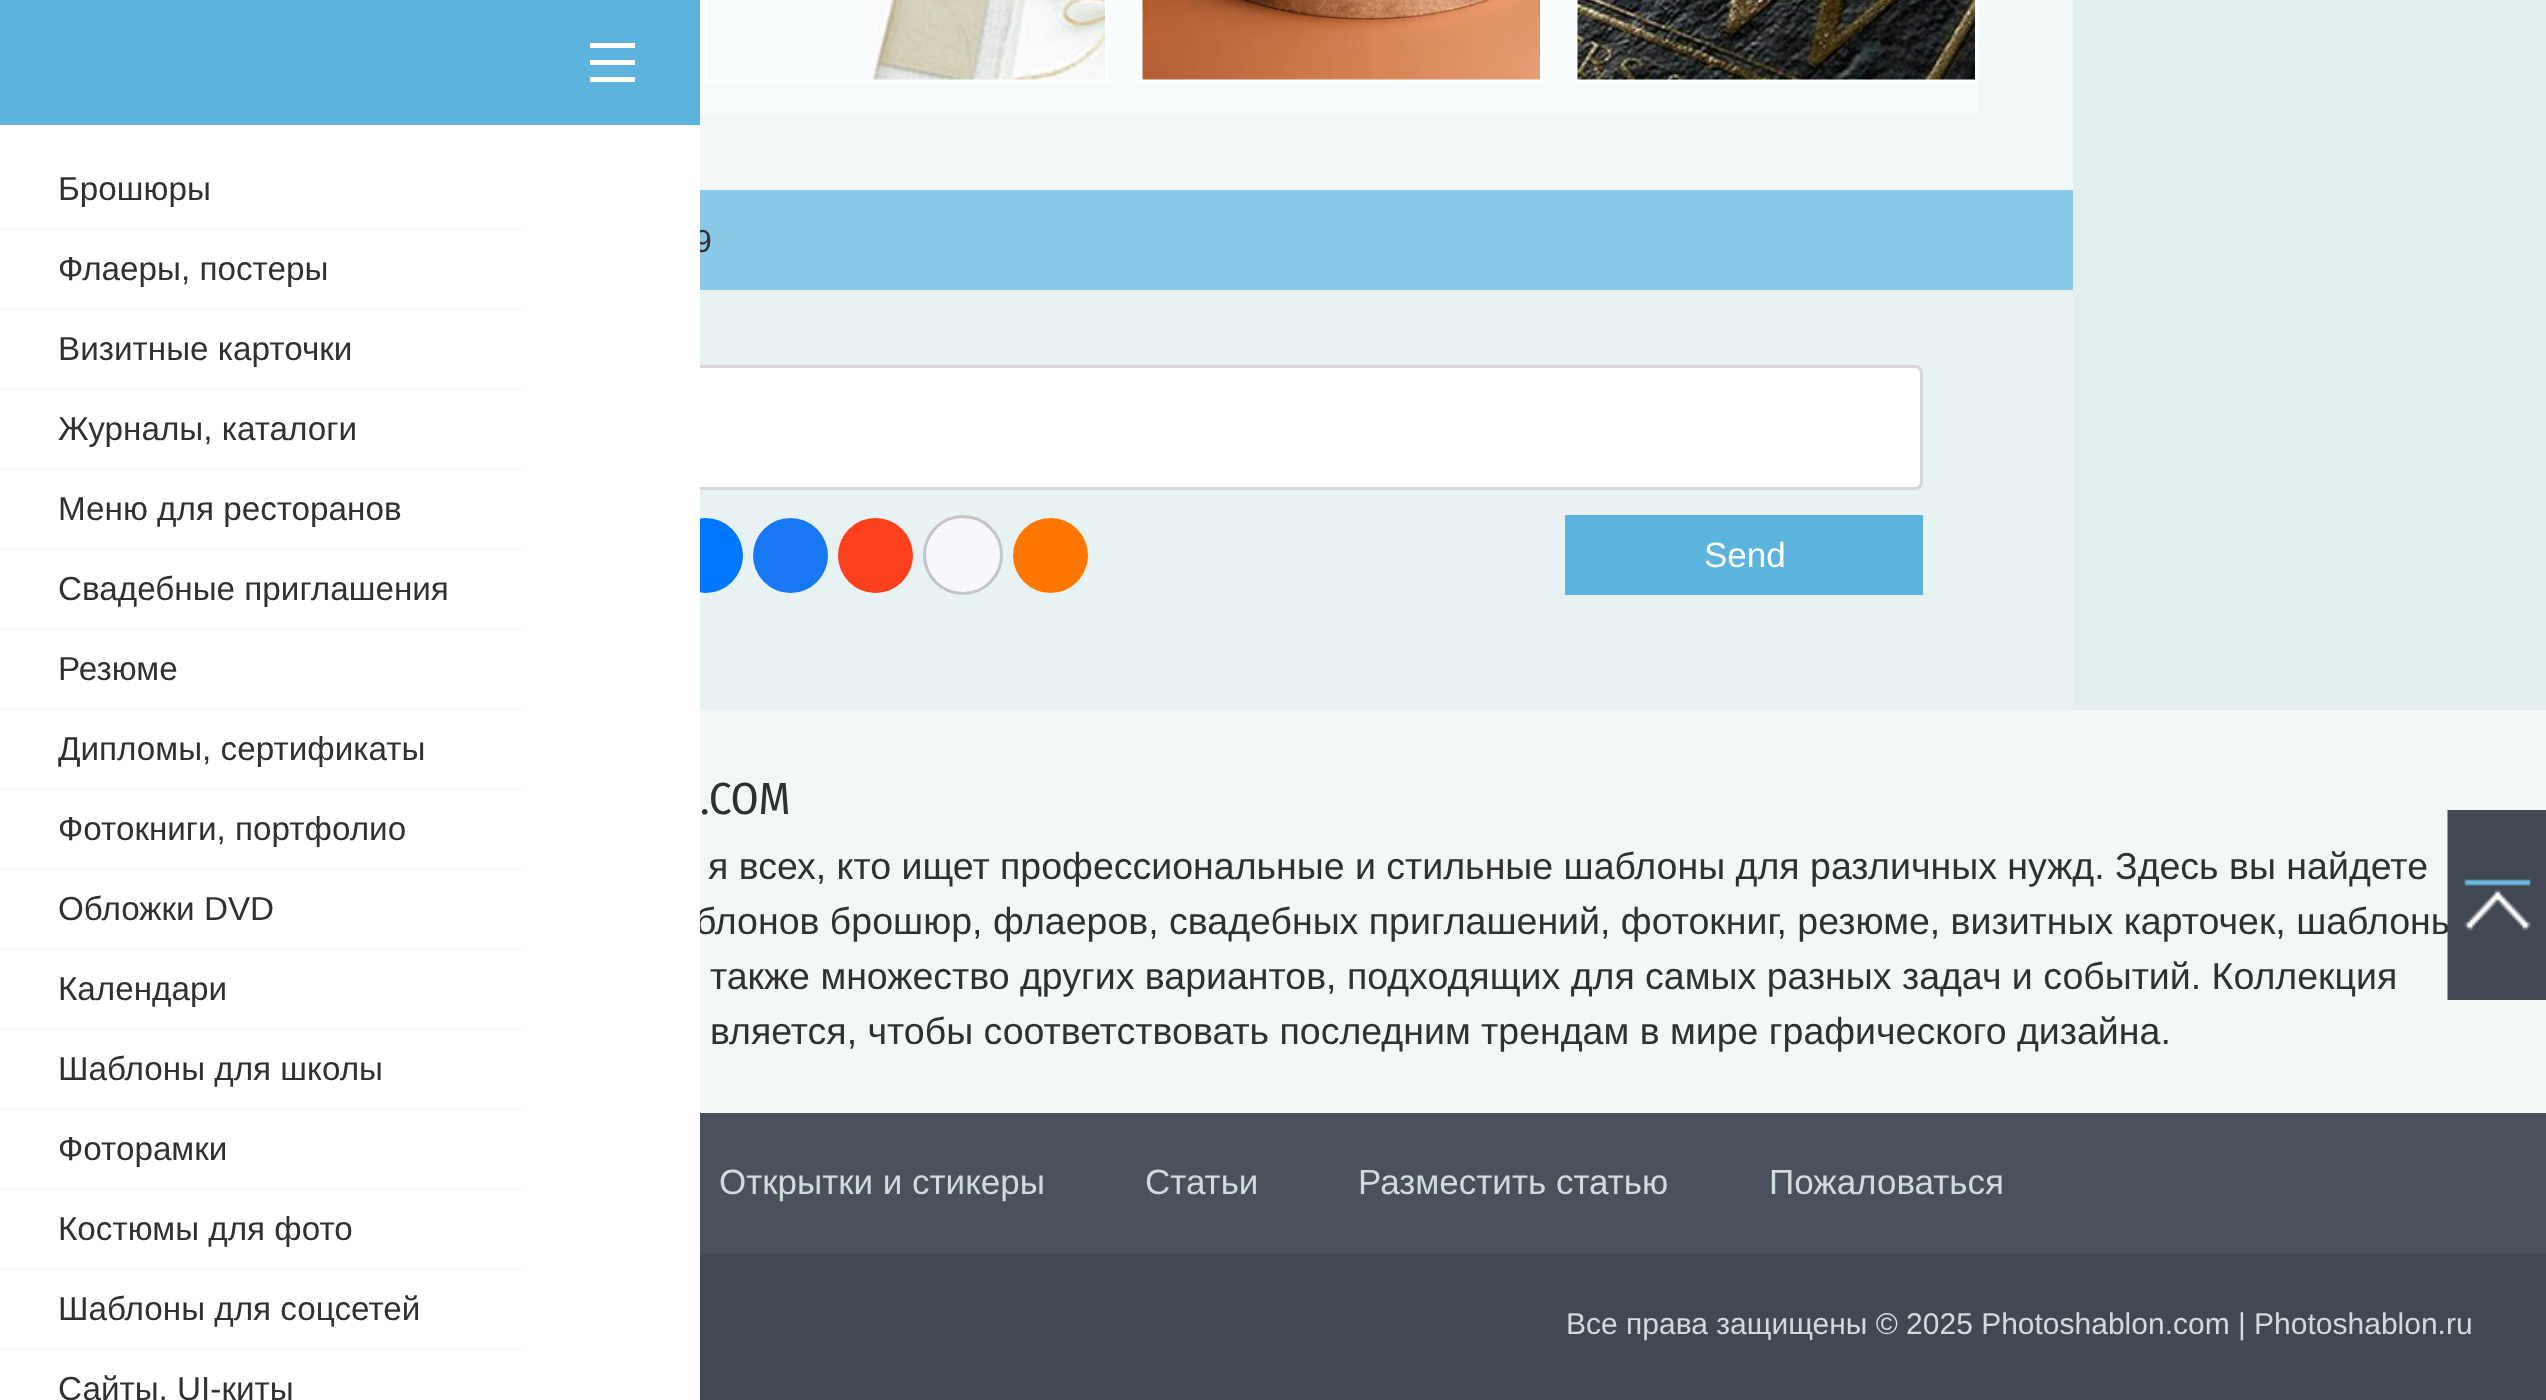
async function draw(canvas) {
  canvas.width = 2546
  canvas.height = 1400
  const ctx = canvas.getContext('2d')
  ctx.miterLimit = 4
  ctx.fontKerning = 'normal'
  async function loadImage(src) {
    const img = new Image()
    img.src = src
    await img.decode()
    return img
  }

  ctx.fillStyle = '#f2f7f7'
  ctx.fillRect(0, 0, 2546, 1400)
  ctx.fillStyle = '#8bc8e6'
  ctx.fillRect(700, 190, 1373, 100)
  ctx.font = '32px Liberation Sans'
  ctx.fillStyle = '#303030'
  ctx.fillText('9', 694, 252)
  ctx.fillStyle = '#e9f2f2'
  ctx.fillRect(700, 290, 1373, 420)
  ctx.fillStyle = '#fff'
  ctx.beginPath()
  ctx.roundRect(476.5, 366.5, 1445, 122, 6.5)
  ctx.fill()
  ctx.strokeStyle = '#d6d6d6'
  ctx.lineWidth = 3
  ctx.stroke()
  ctx.fillStyle = '#07f'
  ctx.beginPath()
  ctx.arc(705.5, 555.5, 37.5, 0, 2 * Math.PI)
  ctx.fill()
  ctx.font = '37.5px Liberation Sans'
  ctx.fillStyle = '#303030'
  ctx.fillText('блонов брошюр, флаеров, свадебных приглашений, фотокниг, резюме, визитных карточек, шаблоны', 695, 934)
  ctx.fillStyle = '#fff'
  ctx.fillRect(0, 125, 700, 1275)
  ctx.fillStyle = '#5bb3de'
  ctx.fillRect(0, 0, 700, 125)
  ctx.fillStyle = '#fff'
  ctx.fillRect(590, 77, 45, 5)
  ctx.fillRect(590, 60, 45, 5)
  ctx.fillRect(590, 43, 45, 5)
  ctx.fillStyle = '#f6fafa'
  ctx.fillRect(0, 228, 523, 2)
  ctx.font = '33.25px Liberation Sans'
  ctx.fillStyle = '#303030'
  ctx.fillText('Брошюры', 58, 200)
  ctx.fillStyle = '#f6fafa'
  ctx.fillRect(0, 308, 523, 2)
  ctx.fillStyle = '#303030'
  ctx.fillText('Флаеры, постеры', 58, 280)
  ctx.fillStyle = '#f6fafa'
  ctx.fillRect(0, 388, 523, 2)
  ctx.fillStyle = '#303030'
  ctx.fillText('Визитные карточки', 58, 360)
  ctx.fillStyle = '#f6fafa'
  ctx.fillRect(0, 468, 523, 2)
  ctx.fillStyle = '#303030'
  ctx.fillText('Журналы, каталоги', 58, 440)
  ctx.fillStyle = '#f6fafa'
  ctx.fillRect(0, 548, 523, 2)
  ctx.fillStyle = '#303030'
  ctx.fillText('Меню для ресторанов', 58, 520)
  ctx.fillStyle = '#f6fafa'
  ctx.fillRect(0, 628, 523, 2)
  ctx.fillStyle = '#303030'
  ctx.fillText('Свадебные приглашения', 58, 600)
  ctx.fillStyle = '#f6fafa'
  ctx.fillRect(0, 708, 523, 2)
  ctx.fillStyle = '#303030'
  ctx.fillText('Резюме', 58, 680)
  ctx.fillStyle = '#f6fafa'
  ctx.fillRect(0, 788, 523, 2)
  ctx.fillStyle = '#303030'
  ctx.fillText('Дипломы, сертификаты', 58, 760)
  ctx.fillStyle = '#f6fafa'
  ctx.fillRect(0, 868, 523, 2)
  ctx.fillStyle = '#303030'
  ctx.fillText('Фотокниги, портфолио', 58, 840)
  ctx.fillStyle = '#f6fafa'
  ctx.fillRect(0, 948, 523, 2)
  ctx.fillStyle = '#303030'
  ctx.fillText('Обложки DVD', 58, 920)
  ctx.fillStyle = '#f6fafa'
  ctx.fillRect(0, 1028, 523, 2)
  ctx.fillStyle = '#303030'
  ctx.fillText('Календари', 58, 1000)
  ctx.fillStyle = '#f6fafa'
  ctx.fillRect(0, 1108, 523, 2)
  ctx.fillStyle = '#303030'
  ctx.fillText('Шаблоны для школы', 58, 1080)
  ctx.fillStyle = '#f6fafa'
  ctx.fillRect(0, 1188, 523, 2)
  ctx.fillStyle = '#303030'
  ctx.fillText('Фоторамки', 58, 1160)
  ctx.fillStyle = '#f6fafa'
  ctx.fillRect(0, 1268, 523, 2)
  ctx.fillStyle = '#303030'
  ctx.fillText('Костюмы для фото', 58, 1240)
  ctx.fillStyle = '#f6fafa'
  ctx.fillRect(0, 1348, 523, 2)
  ctx.fillStyle = '#303030'
  ctx.fillText('Шаблоны для соцсетей', 58, 1320)
  ctx.fillText('Сайты, UI-киты', 58, 1400)
  ctx.fillStyle = '#e2eded'
  ctx.fillRect(2073, 0, 473, 710)
  ctx.fillStyle = '#f9fcfc'
  ctx.fillRect(700, 0, 1278, 115)
  ctx.strokeStyle = '#fff'
  ctx.strokeRect(706.5, -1.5, 400, 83)
  ctx.drawImage(await loadImage('image0.png'), 872, 0, 233, 80)
  ctx.strokeRect(1141.5, -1.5, 400, 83)
  ctx.drawImage(await loadImage('image1.png'), 1142, 0, 398, 80)
  ctx.strokeRect(1576.5, -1.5, 400, 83)
  ctx.drawImage(await loadImage('image2.png'), 1577, 0, 398, 80)
  ctx.fillStyle = '#1877f2'
  ctx.beginPath()
  ctx.arc(790.5, 555.5, 37.5, 0, 2 * Math.PI)
  ctx.fill()
  ctx.fillStyle = '#fc3f1d'
  ctx.beginPath()
  ctx.arc(875.5, 555.5, 37.5, 0, 2 * Math.PI)
  ctx.fill()
  ctx.fillStyle = '#f8f8fc'
  ctx.beginPath()
  ctx.arc(963, 555, 38.5, 0, 2 * Math.PI)
  ctx.fill()
  ctx.strokeStyle = '#c4c4c4'
  ctx.stroke()
  ctx.fillStyle = '#f70'
  ctx.beginPath()
  ctx.arc(1050.5, 555.5, 37.5, 0, 2 * Math.PI)
  ctx.fill()
  ctx.fillStyle = '#5bb3de'
  ctx.fillRect(1565, 515, 358, 80)
  ctx.font = '35px Liberation Sans'
  ctx.fillStyle = '#fff'
  ctx.fillText('Send', 1704, 567)
  ctx.font = '45px Fira Sans Condensed'
  ctx.fillStyle = '#303030'
  ctx.fillText('.COM', 700, 814)
  ctx.font = '37.5px Liberation Sans'
  ctx.fillText('я всех, кто ищет профессиональные и стильные шаблоны для различных нужд. Здесь вы найдете', 708, 879)
  ctx.fillText('также множество других вариантов, подходящих для самых разных задач и событий. Коллекция', 710, 989)
  ctx.fillText('вляется, чтобы соответствовать последним трендам в мире графического дизайна.', 710, 1044)
  ctx.drawImage(await loadImage('image3.png'), 2447, 810, 99, 190)
  ctx.fillStyle = '#4b505d'
  ctx.fillRect(700, 1113, 1846, 140)
  ctx.font = '35px Liberation Sans'
  ctx.fillStyle = '#cddddd'
  ctx.fillText('Открытки и стикеры', 719, 1194)
  ctx.fillText('Статьи', 1145, 1194)
  ctx.fillText('Разместить статью', 1358, 1194)
  ctx.fillText('Пожаловаться', 1769, 1194)
  ctx.fillStyle = '#424754'
  ctx.fillRect(700, 1253, 1846, 147)
  ctx.font = '30px Liberation Sans'
  ctx.fillStyle = '#cddddd'
  ctx.fillText('Все права защищены © 2025 Photoshablon.com | Photoshablon.ru', 1566, 1334)
}

draw(document.querySelector('canvas'))
